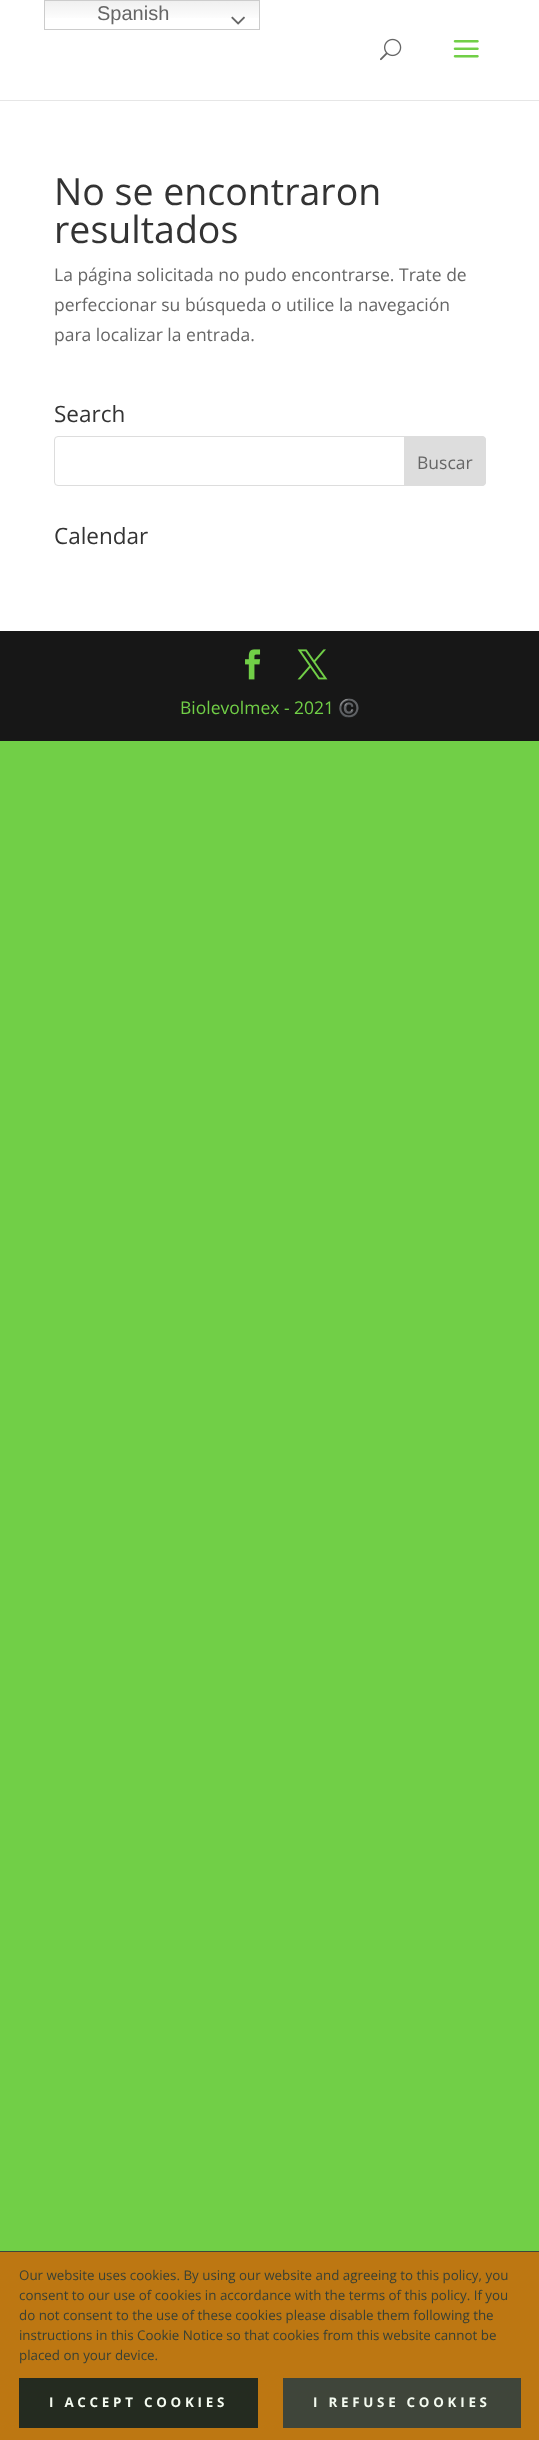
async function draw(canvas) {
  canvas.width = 539
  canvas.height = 2440
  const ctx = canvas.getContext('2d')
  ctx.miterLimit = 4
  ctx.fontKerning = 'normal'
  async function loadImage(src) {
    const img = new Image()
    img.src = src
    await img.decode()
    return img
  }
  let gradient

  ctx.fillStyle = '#71cf47'
  ctx.fillRect(0, 0, 539, 2440)
  ctx.fillStyle = '#fff'
  ctx.fillRect(0, 0, 539, 100)
  gradient = ctx.createLinearGradient(152, 0, 152, 30)
  gradient.addColorStop(0, '#efefef')
  gradient.addColorStop(0.7, '#fff')
  ctx.fillStyle = gradient
  ctx.fillRect(45, 1, 214, 17)
  ctx.strokeStyle = '#ccc'
  ctx.strokeRect(44.5, 0.5, 215, 29)
  ctx.font = '20px Liberation Sans'
  ctx.fillStyle = '#666'
  ctx.fillText('Spanish', 97, 20)
  ctx.drawImage(await loadImage('image0.png'), 231, 16, 14, 9)
  ctx.fillStyle = '#e6e6e6'
  ctx.fillRect(0, 100, 539, 1)
  ctx.drawImage(await loadImage('image1.png'), 380, 38, 22, 23)
  ctx.drawImage(await loadImage('image2.png'), 453, 40, 26, 18)
  ctx.fillStyle = '#fff'
  ctx.fillRect(0, 101, 539, 530)
  ctx.font = '37.5px Open Sans'
  ctx.fillStyle = '#333'
  ctx.fillText('No se encontraron', 54, 205)
  ctx.fillText('resultados', 54, 243)
  ctx.font = '17.5px Open Sans'
  ctx.fillStyle = '#666'
  ctx.fillText('La página solicitada no pudo encontrarse. Trate de', 54, 281)
  ctx.fillText('perfeccionar su búsqueda o utilice la navegación', 54, 311)
  ctx.fillText('para localizar la entrada.', 54, 341)
  ctx.font = '22.5px Open Sans'
  ctx.fillStyle = '#333'
  ctx.fillText('Search', 54, 422)
  ctx.beginPath()
  ctx.roundRect(54.5, 436.5, 431, 49, 3.5)
  ctx.strokeStyle = '#ddd'
  ctx.stroke()
  ctx.fillStyle = '#ddd'
  ctx.beginPath()
  ctx.roundRect(404.5, 436.5, 81, 49, [0, 3.5, 3.5, 0])
  ctx.fill()
  ctx.stroke()
  ctx.font = '17.5px Open Sans'
  ctx.fillStyle = '#666'
  ctx.fillText('Buscar', 417, 469)
  ctx.font = '22.5px Open Sans'
  ctx.fillStyle = '#333'
  ctx.fillText('Calendar', 54, 544)
  ctx.fillStyle = '#171717'
  ctx.fillRect(0, 631, 539, 110)
  ctx.drawImage(await loadImage('image3.png'), 245, 649, 16, 31)
  ctx.drawImage(await loadImage('image4.png'), 297, 649, 31, 31)
  ctx.font = '17.5px Open Sans'
  ctx.fillStyle = '#71cf47'
  ctx.fillText('Biolevolmex - 2021', 180, 714)
  ctx.font = '17.5px Noto Color Emoji'
  ctx.fillText('©️', 338, 714)
  ctx.fillStyle = '#bd7712'
  ctx.fillRect(0, 2252, 539, 188)
  ctx.fillStyle = '#3f453a'
  ctx.fillRect(0, 2251, 539, 1)
  ctx.font = '13.35px Open Sans'
  ctx.fillStyle = '#384035'
  ctx.fillText('Our website uses cookies. By using our website and agreeing to this policy, you', 19, 2280)
  ctx.fillText('consent to our use of cookies in accordance with the terms of this policy. If you', 19, 2300)
  ctx.fillText('do not consent to the use of these cookies please disable them following the', 19, 2320)
  ctx.fillText('instructions in this Cookie Notice so that cookies from this website cannot be', 19, 2340)
  ctx.fillText('placed on your device.', 19, 2360)
  ctx.fillStyle = '#242b20'
  ctx.fillRect(19, 2378, 239, 50)
  ctx.letterSpacing = '3.75px'
  ctx.font = 'bold 13.35px Open Sans'
  ctx.fillStyle = '#f4fbf0'
  ctx.fillText('I ACCEPT COOKIES', 49, 2407)
  ctx.fillStyle = '#3f453a'
  ctx.fillRect(283, 2378, 238, 50)
  ctx.fillStyle = '#f4fbf0'
  ctx.fillText('I REFUSE COOKIES', 313, 2407)
}

draw(document.querySelector('canvas'))
